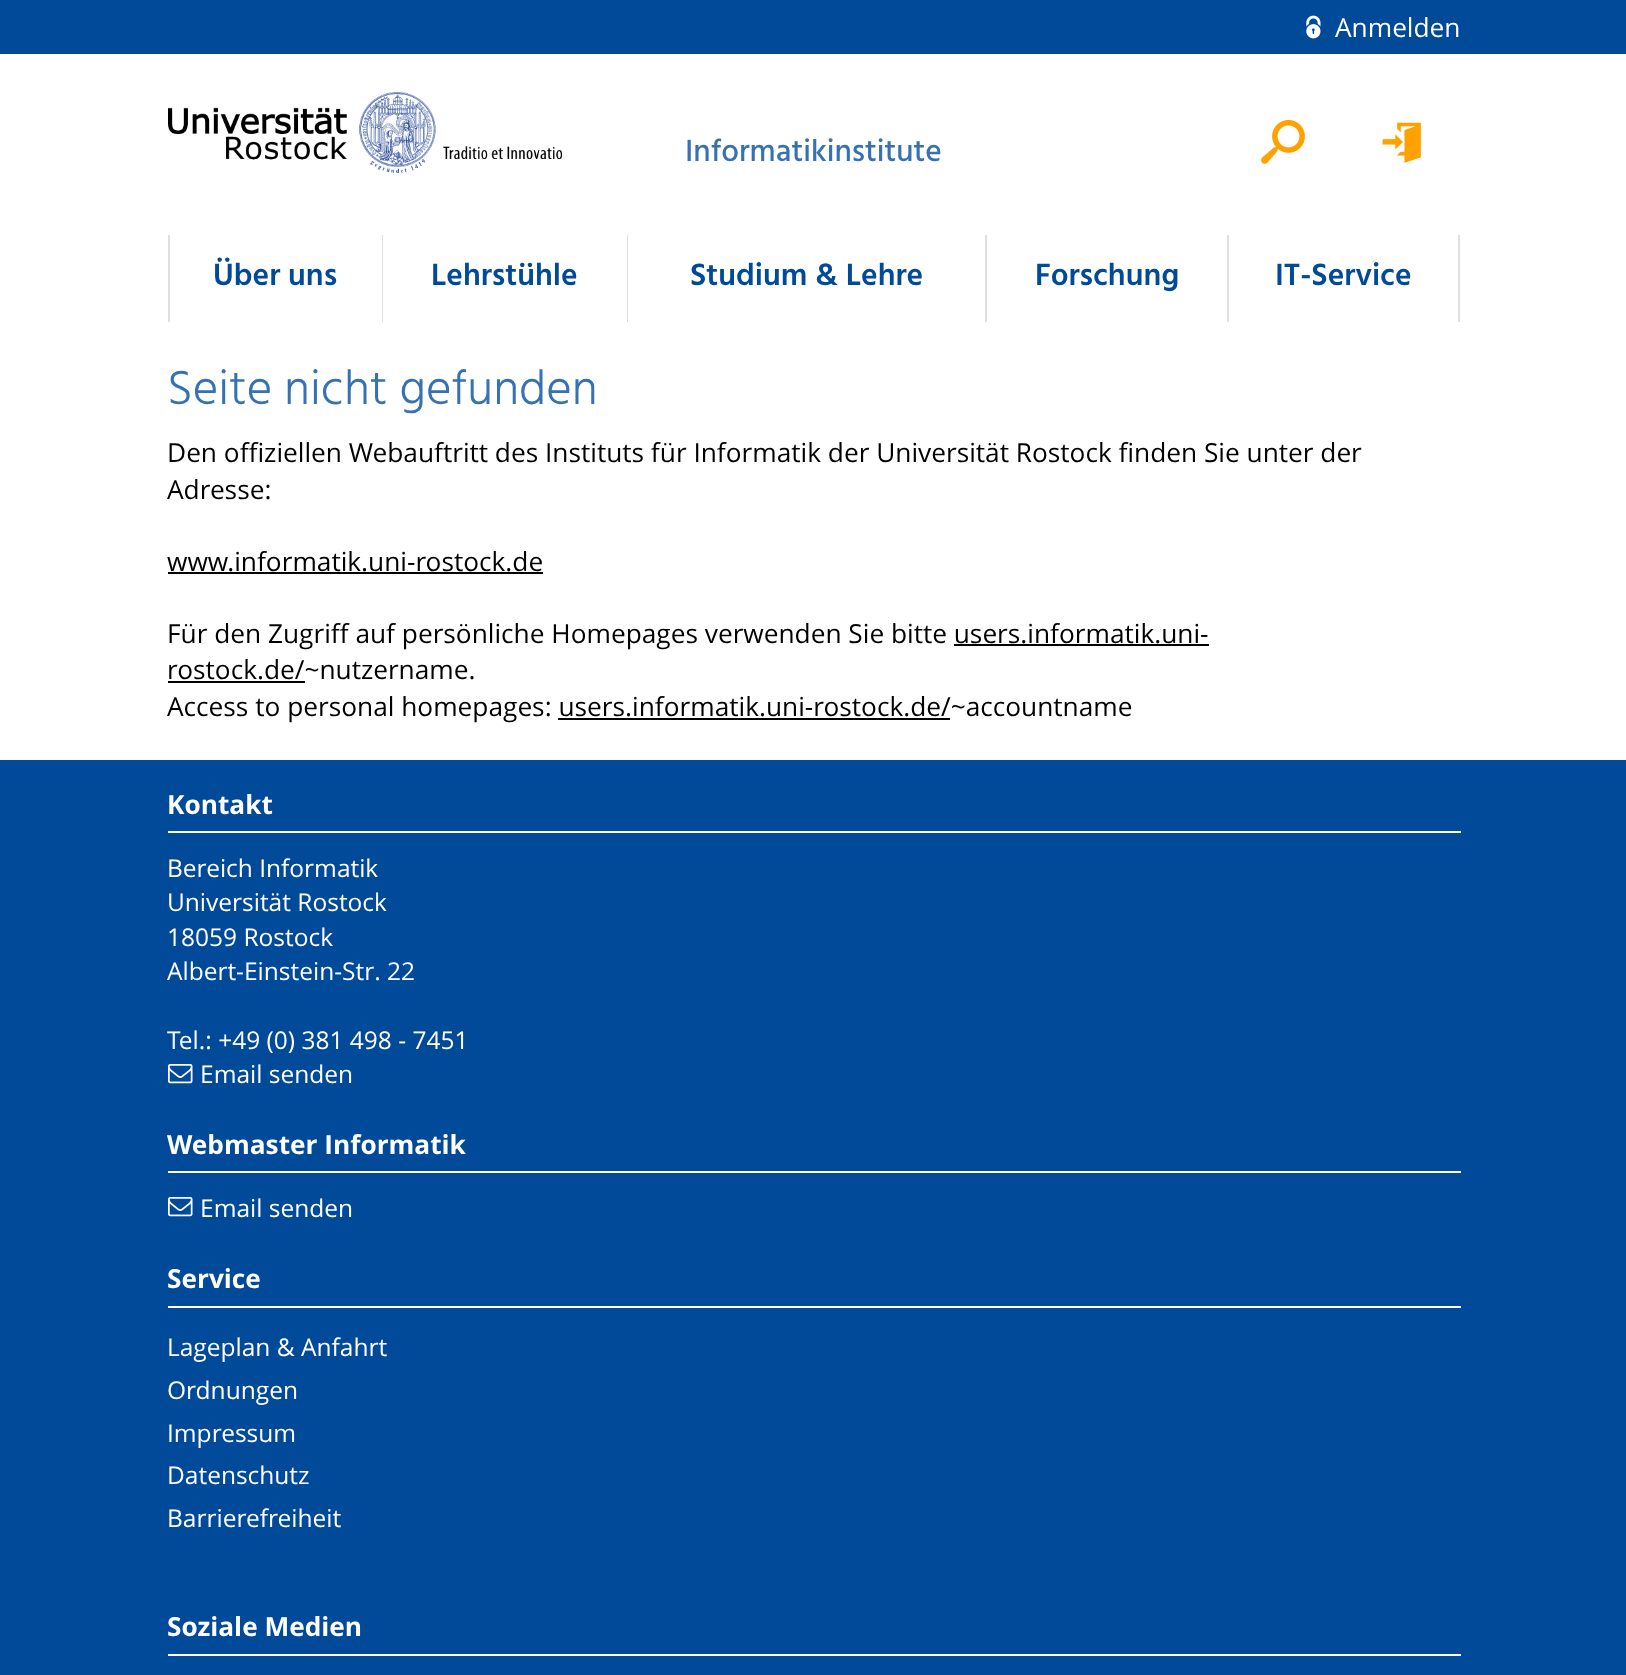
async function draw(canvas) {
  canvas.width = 1626
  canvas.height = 1675
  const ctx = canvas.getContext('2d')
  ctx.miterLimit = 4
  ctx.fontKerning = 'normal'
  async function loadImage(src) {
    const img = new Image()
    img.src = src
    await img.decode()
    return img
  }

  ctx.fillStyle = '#fff'
  ctx.fillRect(0, 0, 1626, 1675)
  ctx.fillStyle = '#004a99'
  ctx.fillRect(0, 0, 1626, 54)
  ctx.drawImage(await loadImage('image0.png'), 1306, 15, 15, 24)
  ctx.font = '26.25px Open Sans'
  ctx.fillStyle = '#fff'
  ctx.fillText('Anmelden', 1335, 37)
  ctx.drawImage(await loadImage('image1.png'), 168, 92, 395, 81)
  ctx.font = '500 31.5px Hind'
  ctx.fillStyle = '#3672b3'
  ctx.fillText('Informatikinstitute', 685, 161)
  ctx.drawImage(await loadImage('image2.png'), 1261, 120, 44, 44)
  ctx.drawImage(await loadImage('image3.png'), 1382, 122, 39, 41)
  ctx.fillStyle = '#dfdfdf'
  ctx.fillRect(168, 235, 2, 87)
  ctx.font = '600 31.5px Hind'
  ctx.fillStyle = '#004a99'
  ctx.fillText('Über uns', 213, 285)
  ctx.fillStyle = '#dfdfdf'
  ctx.fillRect(382, 235, 1, 87)
  ctx.fillStyle = '#004a99'
  ctx.fillText('Lehrstühle', 431, 285)
  ctx.fillStyle = '#dfdfdf'
  ctx.fillRect(627, 235, 1, 87)
  ctx.fillStyle = '#004a99'
  ctx.fillText('Studium & Lehre', 690, 285)
  ctx.fillStyle = '#dfdfdf'
  ctx.fillRect(985, 235, 2, 87)
  ctx.fillStyle = '#004a99'
  ctx.fillText('Forschung', 1035, 285)
  ctx.fillStyle = '#dfdfdf'
  ctx.fillRect(1458, 235, 2, 87)
  ctx.fillRect(1227, 235, 2, 87)
  ctx.fillStyle = '#004a99'
  ctx.fillText('IT-Service', 1275, 285)
  ctx.font = '300 49px Hind'
  ctx.fillStyle = '#3672b3'
  ctx.fillText('Seite nicht gefunden', 167, 404)
  ctx.font = '26.25px Open Sans'
  ctx.fillStyle = '#000'
  ctx.fillText('Den offiziellen Webauftritt des Instituts für Informatik der Universität Rostock finden Sie unter der', 167, 462)
  ctx.fillText('Adresse:', 167, 499)
  ctx.fillText('www.informatik.uni-rostock.de', 167, 571)
  ctx.fillRect(168, 572, 375, 2)
  ctx.fillText('Für den Zugriff auf persönliche Homepages verwenden Sie bitte users.informatik.uni-', 167, 643)
  ctx.fillText('rostock.de/~nutzername.', 167, 679)
  ctx.fillRect(954, 644, 255, 2)
  ctx.fillRect(168, 681, 137, 2)
  ctx.fillText('Access to personal homepages: users.informatik.uni-rostock.de/~accountname', 167, 716)
  ctx.fillRect(558, 718, 392, 2)
  ctx.fillStyle = '#004a99'
  ctx.fillRect(0, 760, 1626, 915)
  ctx.fillStyle = '#fff'
  ctx.fillRect(168, 831, 1293, 2)
  ctx.font = 'bold 26.25px Open Sans'
  ctx.fillText('Kontakt', 167, 814)
  ctx.font = '24.5px Open Sans'
  ctx.fillText('Bereich Informatik', 167, 877)
  ctx.fillText('Universität Rostock', 167, 911)
  ctx.fillText('18059 Rostock', 167, 946)
  ctx.fillText('Albert-Einstein-Str. 22', 167, 980)
  ctx.fillText('Tel.: +49 (0) 381 498 - 7451', 167, 1049)
  ctx.drawImage(await loadImage('image4.png'), 168, 1064, 25, 20)
  ctx.fillText('Email senden', 200, 1083)
  ctx.fillRect(168, 1171, 1293, 2)
  ctx.font = 'bold 26.25px Open Sans'
  ctx.fillText('Webmaster Informatik', 167, 1154)
  ctx.drawImage(await loadImage('image4.png'), 168, 1197, 25, 20)
  ctx.font = '24.5px Open Sans'
  ctx.fillText('Email senden', 200, 1217)
  ctx.fillRect(168, 1306, 1293, 2)
  ctx.font = 'bold 26.25px Open Sans'
  ctx.fillText('Service', 167, 1288)
  ctx.font = '24.5px Open Sans'
  ctx.fillText('Lageplan & Anfahrt', 167, 1356)
  ctx.fillText('Ordnungen', 167, 1399)
  ctx.fillText('Impressum', 167, 1442)
  ctx.fillText('Datenschutz', 167, 1484)
  ctx.fillText('Barrierefreiheit', 167, 1527)
  ctx.fillRect(168, 1654, 1293, 2)
  ctx.font = 'bold 26.25px Open Sans'
  ctx.fillText('Soziale Medien', 167, 1636)
}

draw(document.querySelector('canvas'))
